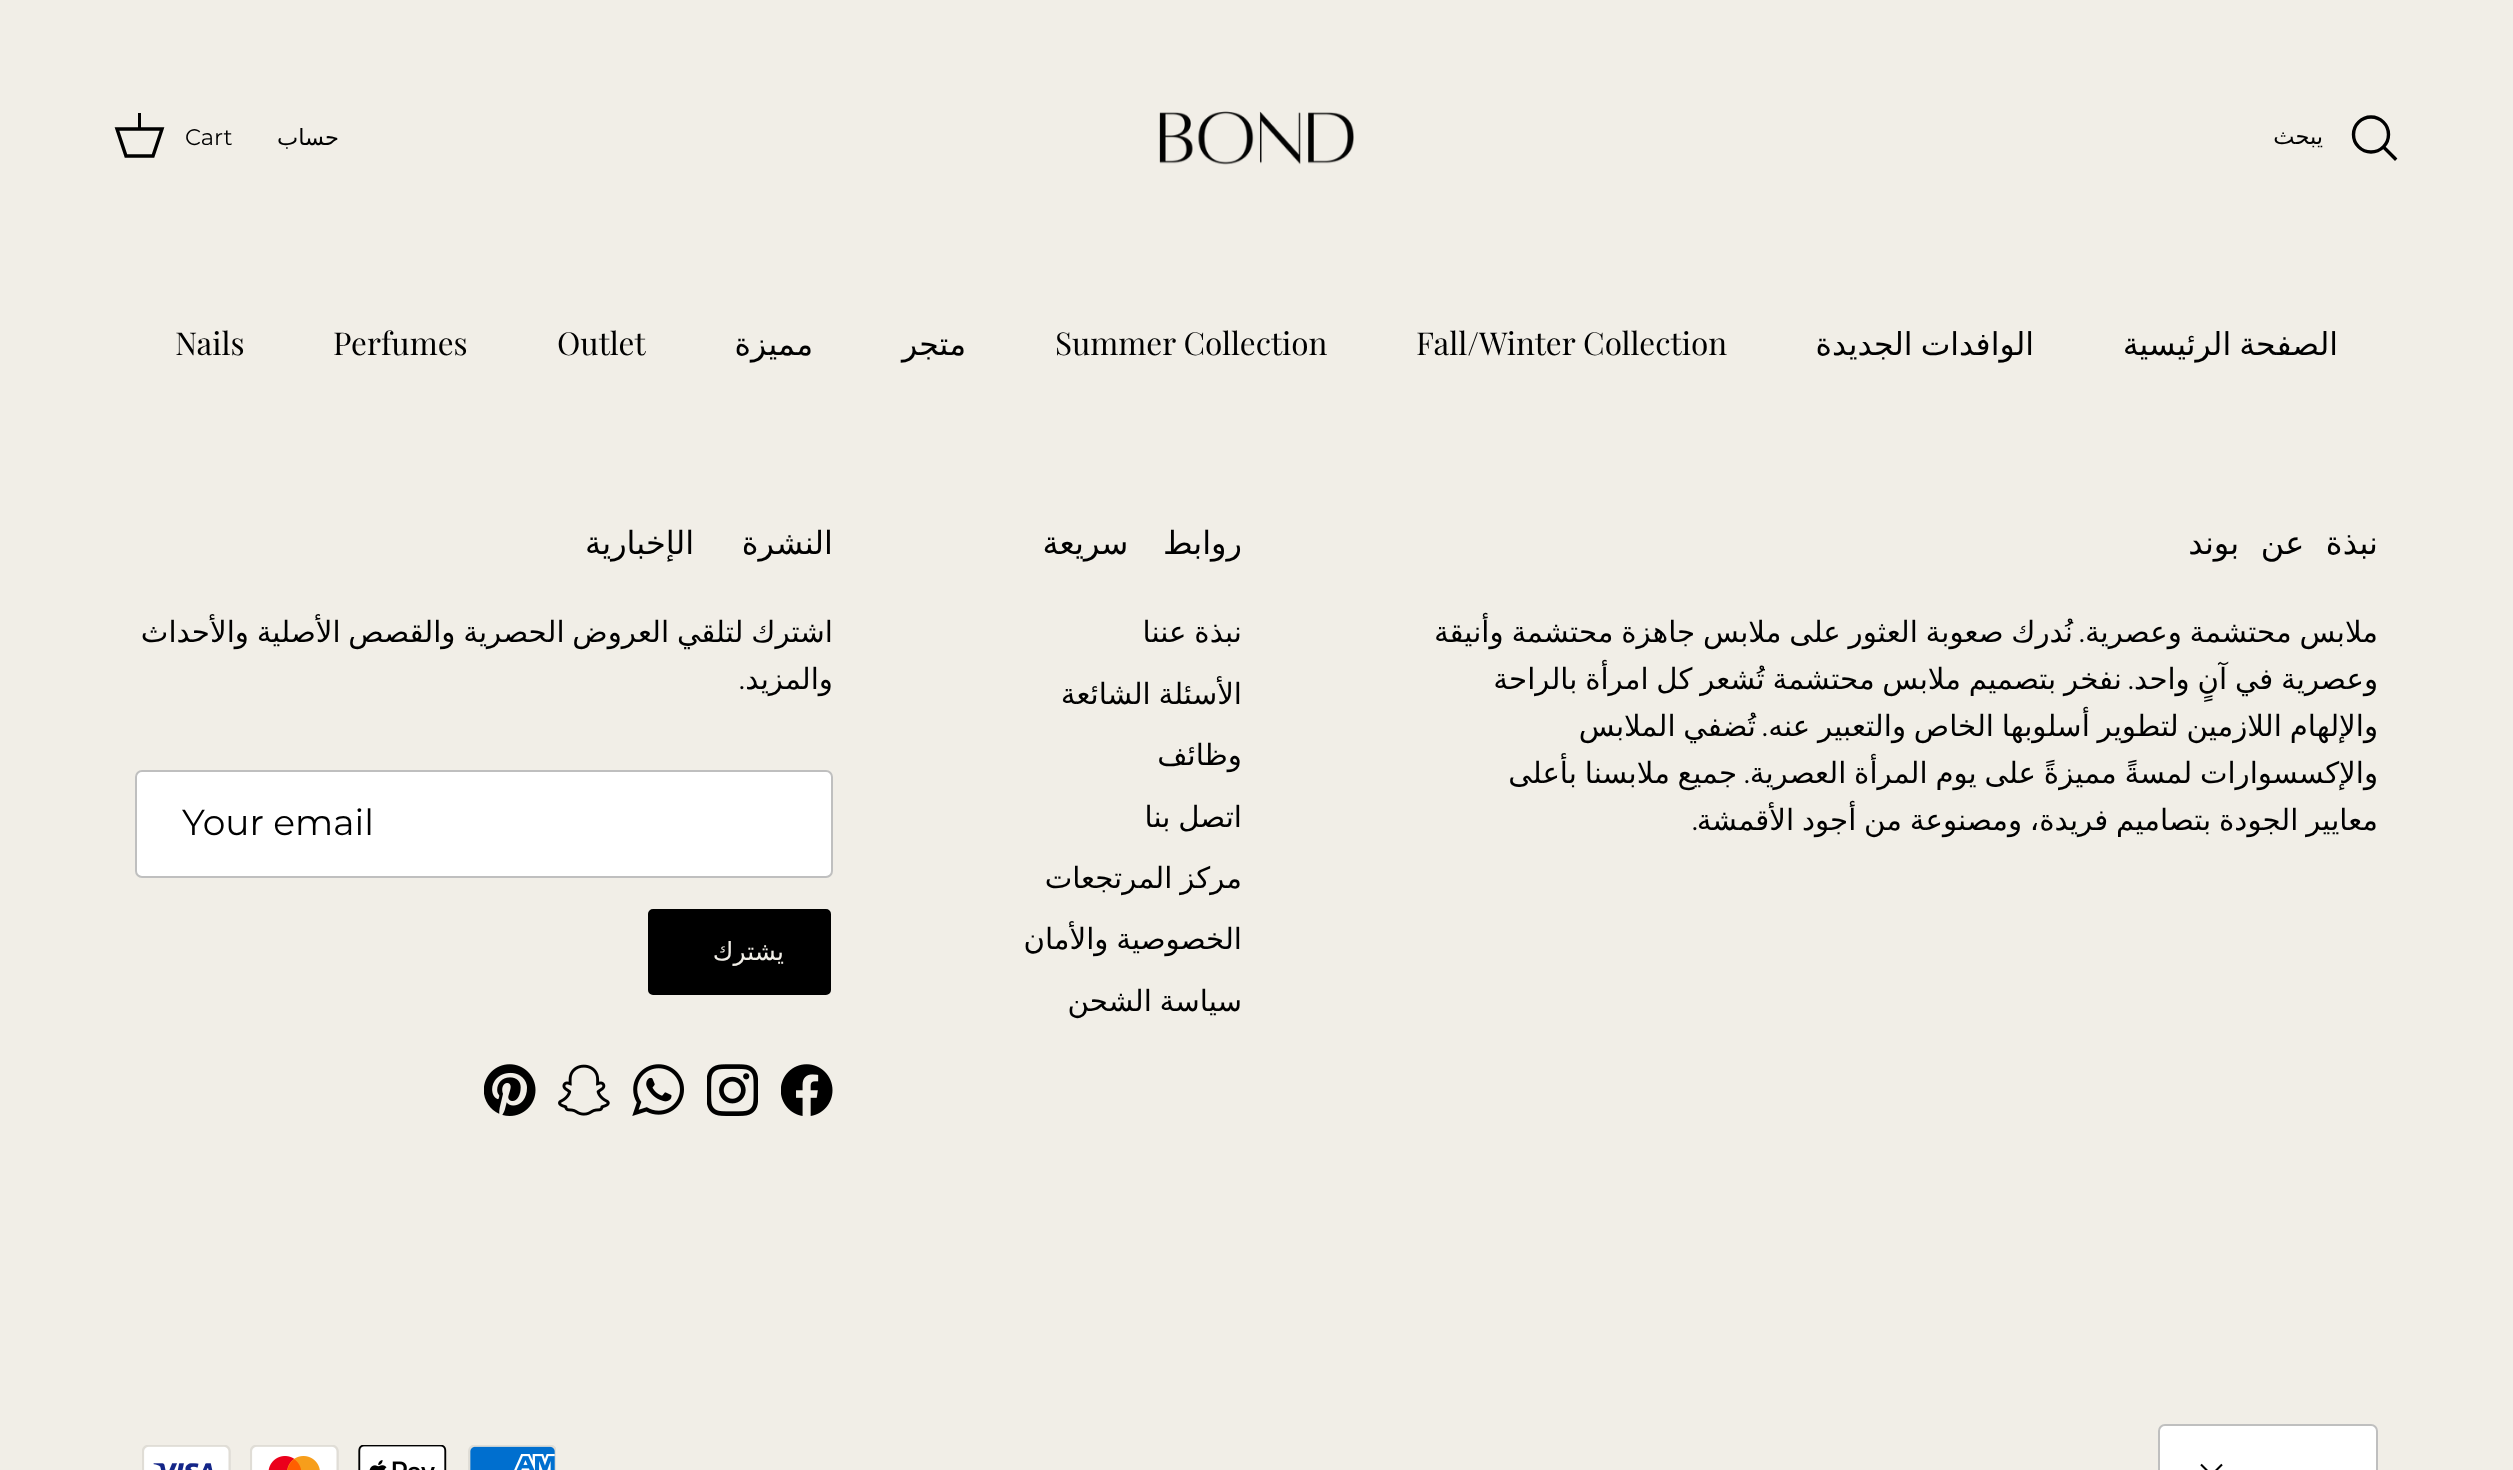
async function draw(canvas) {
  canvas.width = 2513
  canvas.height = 1470
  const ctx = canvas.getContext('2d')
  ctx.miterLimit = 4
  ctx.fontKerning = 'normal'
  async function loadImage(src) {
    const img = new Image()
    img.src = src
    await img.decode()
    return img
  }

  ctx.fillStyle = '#f1eee7'
  ctx.fillRect(0, 0, 2513, 1470)
  ctx.beginPath()
  ctx.arc(2371, 134.5, 17.5, 0, 2 * Math.PI)
  ctx.strokeStyle = '#000'
  ctx.lineWidth = 3.4
  ctx.stroke()
  ctx.direction = 'rtl'
  ctx.font = '22.5px DejaVu Sans'
  ctx.fillStyle = '#000'
  ctx.fillText('يبحث', 2323, 144)
  ctx.beginPath()
  ctx.moveTo(2385, 148.5)
  ctx.lineTo(2395, 158.5)
  ctx.lineCap = 'square'
  ctx.stroke()
  ctx.drawImage(await loadImage('image0.png'), 1159, 111, 195, 54)
  ctx.fillText('حساب', 339, 145)
  ctx.direction = 'ltr'
  ctx.font = '22.5px Montserrat'
  ctx.fillText('Cart', 185, 145)
  ctx.beginPath()
  ctx.moveTo(117, 129)
  ctx.lineTo(162, 129)
  ctx.lineTo(153, 156)
  ctx.lineTo(126, 156)
  ctx.closePath()
  ctx.lineCap = 'butt'
  ctx.stroke()
  ctx.fillRect(138, 113, 3, 17)
  ctx.wordSpacing = '-2px'
  ctx.direction = 'rtl'
  ctx.font = '31.5px DejaVu Sans'
  ctx.fillText('الصفحة الرئيسية', 2338, 355)
  ctx.fillText('الوافدات الجديدة', 2034, 355)
  ctx.wordSpacing = '0px'
  ctx.direction = 'ltr'
  ctx.font = '31.5px Playfair Display'
  ctx.fillText('Fall/Winter Collection', 1416, 355)
  ctx.fillText('Summer Collection', 1055, 355)
  ctx.direction = 'rtl'
  ctx.font = '31.5px DejaVu Sans'
  ctx.fillText('متجر', 966, 355)
  ctx.fillText('مميزة', 813, 355)
  ctx.direction = 'ltr'
  ctx.font = '31.5px Playfair Display'
  ctx.fillText('Outlet', 557, 355)
  ctx.fillText('Perfumes', 333, 355)
  ctx.fillText('Nails', 175, 355)
  ctx.letterSpacing = '-2.6px'
  ctx.wordSpacing = '14px'
  ctx.direction = 'rtl'
  ctx.font = '32px DejaVu Sans'
  ctx.fillText('نبذة عن بوند', 2378, 554)
  ctx.letterSpacing = '0px'
  ctx.wordSpacing = '-1.5px'
  ctx.font = '29.25px DejaVu Sans'
  ctx.fillText('ملابس محتشمة وعصرية', 2378, 642)
  ctx.wordSpacing = '0px'
  ctx.font = '29.25px Montserrat'
  ctx.fillText('.', 2085, 642)
  ctx.wordSpacing = '-1.5px'
  ctx.font = '29.25px DejaVu Sans'
  ctx.fillText('نُدرك صعوبة العثور على ملابس جاهزة محتشمة وأنيقة', 2073, 642)
  ctx.fillText('وعصرية في آنٍ واحد', 2378, 689)
  ctx.wordSpacing = '0px'
  ctx.font = '29.25px Montserrat'
  ctx.fillText('.', 2134, 689)
  ctx.wordSpacing = '-1.5px'
  ctx.font = '29.25px DejaVu Sans'
  ctx.fillText('نفخر بتصميم ملابس محتشمة تُشعر كل امرأة بالراحة', 2122, 689)
  ctx.fillText('والإلهام اللازمين لتطوير أسلوبها الخاص والتعبير عنه', 2378, 736)
  ctx.wordSpacing = '0px'
  ctx.font = '29.25px Montserrat'
  ctx.fillText('.', 1768, 736)
  ctx.wordSpacing = '-1.5px'
  ctx.font = '29.25px DejaVu Sans'
  ctx.fillText('تُضفي الملابس', 1756, 736)
  ctx.fillText('والإكسسوارات لمسةً مميزةً على يوم المرأة العصرية', 2378, 783)
  ctx.wordSpacing = '0px'
  ctx.font = '29.25px Montserrat'
  ctx.fillText('.', 1750, 783)
  ctx.wordSpacing = '-1.5px'
  ctx.font = '29.25px DejaVu Sans'
  ctx.fillText('جميع ملابسنا بأعلى', 1737, 783)
  ctx.fillText('معايير الجودة بتصاميم فريدة، ومصنوعة من أجود الأقمشة', 2378, 830)
  ctx.wordSpacing = '0px'
  ctx.font = '29.25px Montserrat'
  ctx.fillText('.', 1698, 830)
  ctx.letterSpacing = '-2.6px'
  ctx.wordSpacing = '27px'
  ctx.font = '32px DejaVu Sans'
  ctx.fillText('روابط سريعة', 1242, 554)
  ctx.letterSpacing = '0px'
  ctx.wordSpacing = '-1.5px'
  ctx.font = '29.25px DejaVu Sans'
  ctx.fillText('نبذة عننا', 1242, 642)
  ctx.fillText('الأسئلة الشائعة', 1242, 704)
  ctx.wordSpacing = '0px'
  ctx.fillText('وظائف', 1242, 765)
  ctx.wordSpacing = '-1.5px'
  ctx.fillText('اتصل بنا', 1242, 827)
  ctx.fillText('مركز المرتجعات', 1242, 888)
  ctx.fillText('الخصوصية والأمان', 1242, 949)
  ctx.fillText('سياسة الشحن', 1242, 1011)
  ctx.letterSpacing = '-2.6px'
  ctx.wordSpacing = '40px'
  ctx.font = '32px DejaVu Sans'
  ctx.fillText('النشرة الإخبارية', 833, 554)
  ctx.letterSpacing = '0px'
  ctx.wordSpacing = '-1.5px'
  ctx.font = '29.25px DejaVu Sans'
  ctx.fillText('اشترك لتلقي العروض الحصرية والقصص الأصلية والأحداث', 833, 642)
  ctx.wordSpacing = '0px'
  ctx.fillText('والمزيد', 833, 689)
  ctx.font = '29.25px Montserrat'
  ctx.fillText('.', 745, 689)
  ctx.fillStyle = '#fff'
  ctx.beginPath()
  ctx.roundRect(136, 771, 696, 106, 6)
  ctx.fill()
  ctx.strokeStyle = '#bfbfbf'
  ctx.lineWidth = 2
  ctx.stroke()
  ctx.direction = 'ltr'
  ctx.font = '36px Montserrat'
  ctx.fillStyle = '#000'
  ctx.fillText('Your email', 182, 835)
  ctx.beginPath()
  ctx.roundRect(647, 908, 185, 88, 6)
  ctx.fill()
  ctx.strokeStyle = '#f1eee7'
  ctx.stroke()
  ctx.letterSpacing = '2px'
  ctx.direction = 'rtl'
  ctx.font = '25px DejaVu Sans'
  ctx.fillStyle = '#f1eee7'
  ctx.fillText('يشترك', 784, 960)
  ctx.drawImage(await loadImage('image1.png'), 781, 1064, 52, 52)
  ctx.drawImage(await loadImage('image2.png'), 707, 1064, 51, 52)
  ctx.drawImage(await loadImage('image3.png'), 632, 1064, 52, 52)
  ctx.drawImage(await loadImage('image4.png'), 558, 1064, 52, 52)
  ctx.drawImage(await loadImage('image5.png'), 484, 1064, 52, 52)
  ctx.fillStyle = '#fff'
  ctx.beginPath()
  ctx.roundRect(2159, 1425, 218, 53, 6)
  ctx.fill()
  ctx.strokeStyle = '#bfbfbf'
  ctx.stroke()
  ctx.beginPath()
  ctx.moveTo(2222, 1464.5)
  ctx.lineTo(2211.5, 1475)
  ctx.lineTo(2201, 1464.5)
  ctx.strokeStyle = '#000'
  ctx.lineWidth = 2.1
  ctx.stroke()
  ctx.drawImage(await loadImage('image6.png'), 468, 1445, 88, 25)
  ctx.drawImage(await loadImage('image7.png'), 358, 1445, 89, 25)
  ctx.drawImage(await loadImage('image8.png'), 250, 1445, 89, 25)
  ctx.drawImage(await loadImage('image9.png'), 142, 1445, 89, 25)
}

draw(document.querySelector('canvas'))
